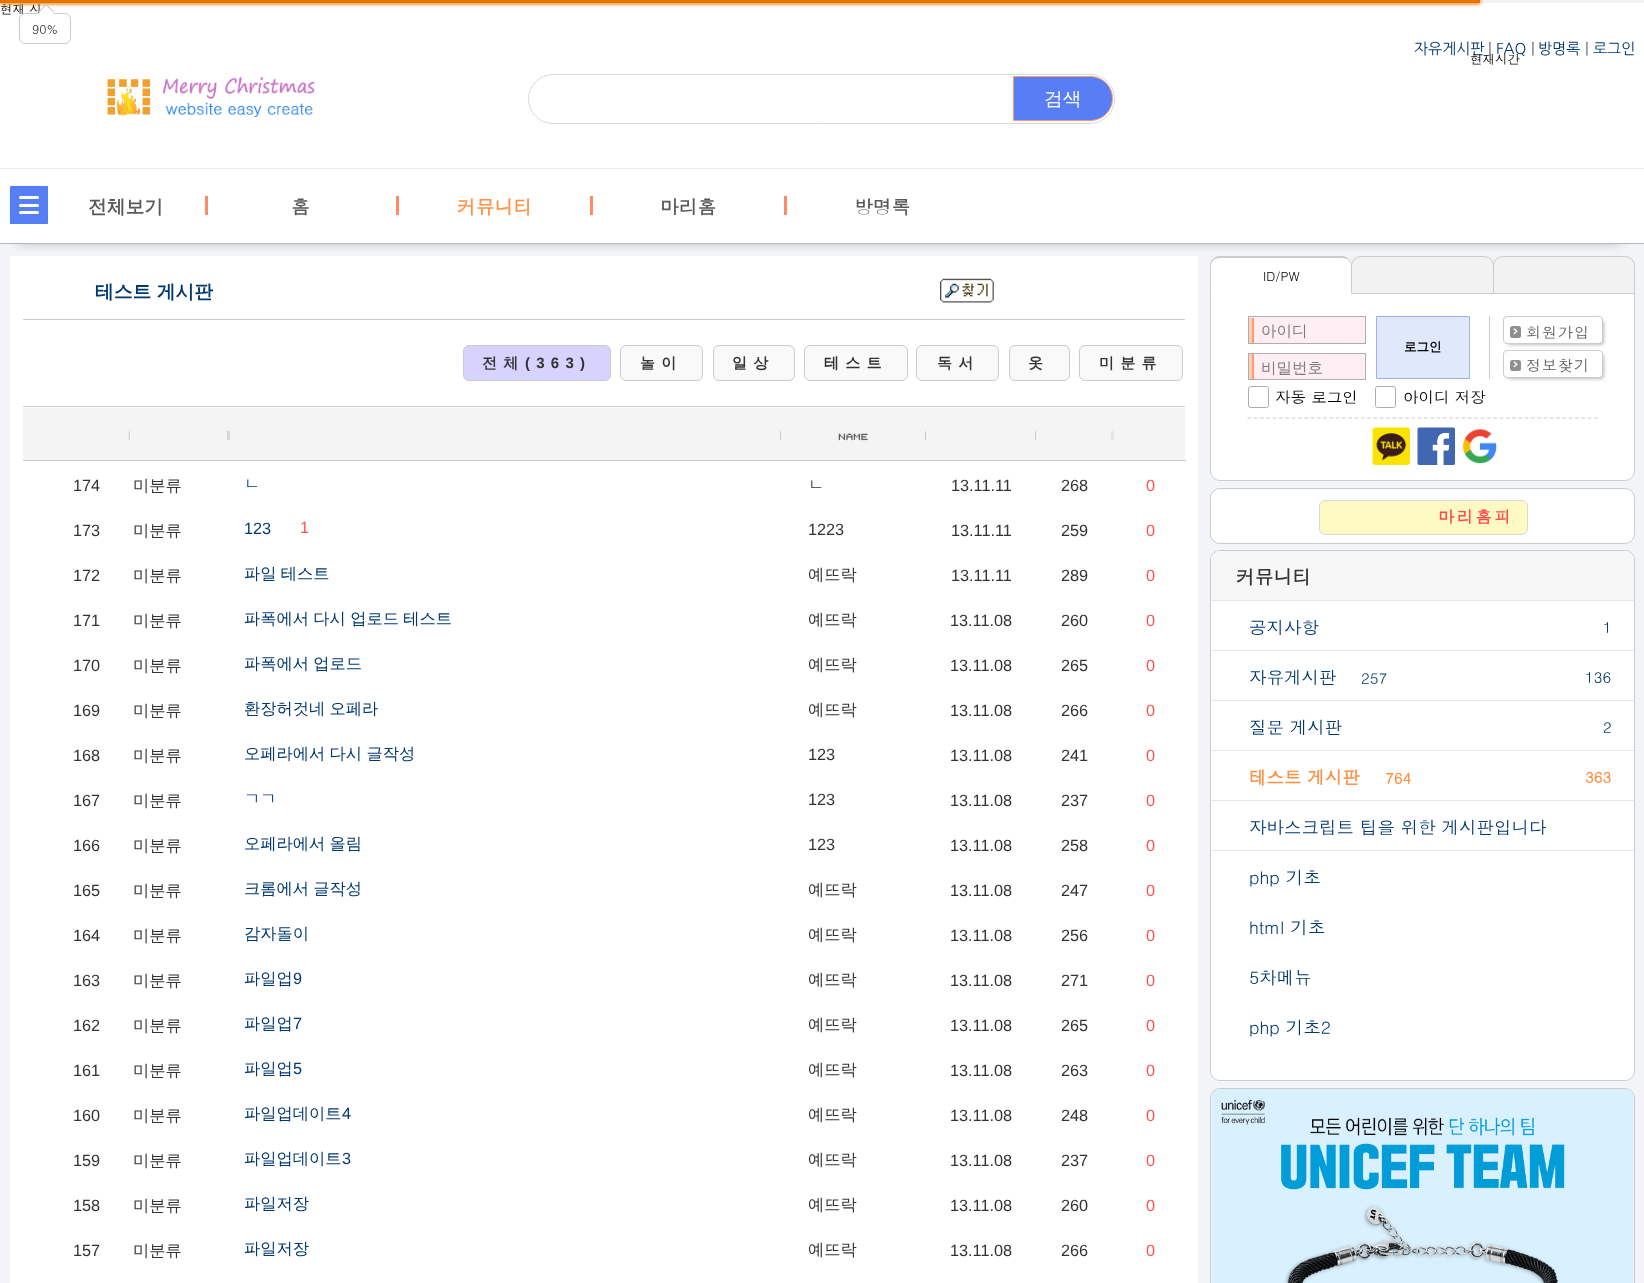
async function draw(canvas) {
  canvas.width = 1644
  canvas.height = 1283
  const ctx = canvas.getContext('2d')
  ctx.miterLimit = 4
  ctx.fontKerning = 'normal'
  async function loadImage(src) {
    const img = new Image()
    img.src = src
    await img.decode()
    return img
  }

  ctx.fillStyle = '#fff'
  ctx.fillRect(0, 0, 1644, 1283)
  ctx.font = '12.5px Dotum'
  ctx.fillStyle = '#000'
  ctx.fillText('현재 시', 0, 14)
  ctx.fillStyle = '#ececec'
  ctx.fillRect(0, 168, 1644, 1)
  ctx.font = '15px NanumGothic'
  ctx.fillStyle = '#01386f'
  ctx.fillText('자유게시판', 1414, 54)
  ctx.fillStyle = '#5a5a5a'
  ctx.fillText('|', 1488, 54)
  ctx.fillStyle = '#01386f'
  ctx.fillText('FAQ', 1496, 54)
  ctx.fillStyle = '#5a5a5a'
  ctx.fillText('|', 1531, 54)
  ctx.fillStyle = '#01386f'
  ctx.fillText('방명록', 1538, 54)
  ctx.fillStyle = '#5a5a5a'
  ctx.fillText('|', 1585, 54)
  ctx.fillStyle = '#01386f'
  ctx.fillText('로그인', 1593, 54)
  ctx.drawImage(await loadImage('image0.png'), 107, 76, 208, 41)
  ctx.beginPath()
  ctx.roundRect(528.5, 74.5, 586, 49, 24.5)
  ctx.strokeStyle = '#dadada'
  ctx.stroke()
  ctx.fillStyle = '#587ef6'
  ctx.beginPath()
  ctx.roundRect(1013.5, 76.5, 99, 44, [0, 22, 22, 0])
  ctx.fill()
  ctx.strokeStyle = '#ff9b6a'
  ctx.stroke()
  ctx.font = '500 18.75px WenQuanYi Zen Hei'
  ctx.fillStyle = '#fff'
  ctx.fillText('검색', 1044, 105)
  ctx.fillStyle = '#f2f4f7'
  ctx.fillRect(0, 244, 1644, 1039)
  ctx.fillStyle = '#fff'
  ctx.fillRect(10, 256, 1188, 1027)
  ctx.beginPath()
  ctx.roundRect(1210.5, 256.5, 424, 224, 9.5)
  ctx.fill()
  ctx.strokeStyle = '#ccc'
  ctx.stroke()
  ctx.fillStyle = '#f2f2f2'
  ctx.fillRect(1210, 256, 425, 10)
  ctx.fillStyle = '#fff'
  ctx.beginPath()
  ctx.roundRect(1210, 256, 143, 38, [10, 10, 0, 0])
  ctx.fill()
  ctx.fillStyle = '#ccc'
  ctx.beginPath()
  ctx.moveTo(1220, 258)
  ctx.bezierCurveTo(1218, 258, 1215, 259, 1214, 260)
  ctx.lineTo(1213, 259)
  ctx.bezierCurveTo(1214, 258, 1216, 257, 1218, 256)
  ctx.lineTo(1344, 256)
  ctx.bezierCurveTo(1346, 257, 1348, 258, 1349, 259)
  ctx.lineTo(1349, 260)
  ctx.bezierCurveTo(1347, 259, 1345, 258, 1342, 258)
  ctx.closePath()
  ctx.fill()
  ctx.beginPath()
  ctx.moveTo(1349.5, 259.5)
  ctx.bezierCurveTo(1351, 261, 1352, 263.5, 1352, 266)
  ctx.lineTo(1352, 293)
  ctx.lineTo(1351, 292)
  ctx.lineTo(1351, 266)
  ctx.bezierCurveTo(1351, 263.5, 1350, 261.5, 1348.5, 260)
  ctx.closePath()
  ctx.fill()
  ctx.fillStyle = '#fff'
  ctx.beginPath()
  ctx.moveTo(1352, 294)
  ctx.lineTo(1210, 294)
  ctx.lineTo(1212, 292)
  ctx.lineTo(1351, 292)
  ctx.closePath()
  ctx.fill()
  ctx.fillStyle = '#ccc'
  ctx.beginPath()
  ctx.moveTo(1210, 294)
  ctx.lineTo(1212, 292)
  ctx.lineTo(1211, 292)
  ctx.lineTo(1211, 266)
  ctx.bezierCurveTo(1211, 263.5, 1212, 261.5, 1214, 260)
  ctx.lineTo(1213, 259)
  ctx.bezierCurveTo(1211, 261, 1210, 263.5, 1210, 266)
  ctx.closePath()
  ctx.fill()
  ctx.fillStyle = '#f2f2f2'
  ctx.beginPath()
  ctx.roundRect(1351.5, 256.5, 142, 37, [9.5, 9.5, 0, 0])
  ctx.fill()
  ctx.stroke()
  ctx.beginPath()
  ctx.roundRect(1493.5, 256.5, 141, 37, [9.5, 9.5, 0, 0])
  ctx.fill()
  ctx.stroke()
  ctx.save()
  ctx.beginPath()
  ctx.rect(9, 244, 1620, 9)
  ctx.clip()
  ctx.fillStyle = '#969696'
  ctx.filter = 'blur(6px)'
  ctx.beginPath()
  ctx.rect(18, 209, 1602, 32)
  ctx.fill()
  ctx.filter = 'none'
  ctx.restore()
  ctx.fillStyle = '#b1b8c3'
  ctx.fillRect(0, 243, 1644, 1)
  ctx.font = '12.5px Dotum'
  ctx.fillStyle = '#000'
  ctx.fillText('현재시간', 1470, 64)
  ctx.fillStyle = '#587ef6'
  ctx.beginPath()
  ctx.rect(10.5, 186.5, 37, 37)
  ctx.fill()
  ctx.strokeStyle = '#4b81f5'
  ctx.stroke()
  ctx.fillStyle = '#fff'
  ctx.beginPath()
  ctx.roundRect(19, 196, 20, 3, 1.5)
  ctx.fill()
  ctx.beginPath()
  ctx.roundRect(19, 204, 20, 3, 1.5)
  ctx.fill()
  ctx.beginPath()
  ctx.roundRect(19, 211, 20, 3, 1.5)
  ctx.fill()
  ctx.font = 'bold 18.75px WenQuanYi Zen Hei'
  ctx.fillStyle = '#5a5a5a'
  ctx.fillText('전체보기', 88, 213)
  ctx.fillStyle = '#ff8a65'
  ctx.fillRect(205, 196, 3, 19)
  ctx.font = 'bold 18.75px Dotum'
  ctx.fillStyle = '#5a5a5a'
  ctx.fillText('홈', 291, 214)
  ctx.fillStyle = '#ff8a65'
  ctx.fillRect(396, 196, 3, 19)
  ctx.fillStyle = '#ff9146'
  ctx.fillText('커뮤니티', 457, 214)
  ctx.fillStyle = '#ff8a65'
  ctx.fillRect(590, 196, 3, 19)
  ctx.fillStyle = '#5a5a5a'
  ctx.fillText('마리홈', 660, 214)
  ctx.fillStyle = '#ff8a65'
  ctx.fillRect(784, 196, 3, 19)
  ctx.fillStyle = '#5a5a5a'
  ctx.fillText('방명록', 854, 214)
  ctx.font = 'bold 18.75px WenQuanYi Zen Hei'
  ctx.fillStyle = '#01386f'
  ctx.fillText('테스트 게시판', 95, 298)
  ctx.drawImage(await loadImage('image1.png'), 940, 278, 54, 25)
  ctx.fillStyle = '#ccc'
  ctx.fillRect(23, 319, 1162, 1)
  ctx.fillStyle = '#d6d3fe'
  ctx.beginPath()
  ctx.roundRect(463.5, 345.5, 147, 35, 5.5)
  ctx.fill()
  ctx.strokeStyle = '#ccc'
  ctx.stroke()
  ctx.letterSpacing = '6.25px'
  ctx.font = 'bold 15px WenQuanYi Zen Hei'
  ctx.fillStyle = '#333'
  ctx.fillText('전체', 482, 368)
  ctx.font = 'bold 15px Liberation Sans'
  ctx.fillText('(363)', 525, 368)
  ctx.fillStyle = '#f9f9f9'
  ctx.beginPath()
  ctx.roundRect(620.5, 345.5, 82, 35, 5.5)
  ctx.fill()
  ctx.stroke()
  ctx.font = 'bold 15px WenQuanYi Zen Hei'
  ctx.fillStyle = '#333'
  ctx.fillText('놀이', 640, 368)
  ctx.fillStyle = '#f9f9f9'
  ctx.beginPath()
  ctx.roundRect(713.5, 345.5, 81, 35, 5.5)
  ctx.fill()
  ctx.stroke()
  ctx.fillStyle = '#333'
  ctx.fillText('일상', 732, 368)
  ctx.fillStyle = '#f9f9f9'
  ctx.beginPath()
  ctx.roundRect(804.5, 345.5, 103, 35, 5.5)
  ctx.fill()
  ctx.stroke()
  ctx.fillStyle = '#333'
  ctx.fillText('테스트', 824, 368)
  ctx.fillStyle = '#f9f9f9'
  ctx.beginPath()
  ctx.roundRect(916.5, 345.5, 82, 35, 5.5)
  ctx.fill()
  ctx.stroke()
  ctx.fillStyle = '#333'
  ctx.fillText('독서', 937, 368)
  ctx.fillStyle = '#f9f9f9'
  ctx.beginPath()
  ctx.roundRect(1009.5, 345.5, 60, 35, 5.5)
  ctx.fill()
  ctx.stroke()
  ctx.fillStyle = '#333'
  ctx.fillText('옷', 1028, 368)
  ctx.fillStyle = '#f9f9f9'
  ctx.beginPath()
  ctx.roundRect(1079.5, 345.5, 103, 35, 5.5)
  ctx.fill()
  ctx.stroke()
  ctx.fillStyle = '#333'
  ctx.fillText('미분류', 1099, 368)
  ctx.fillStyle = '#ccc'
  ctx.fillRect(23, 406, 1162, 1)
  ctx.fillStyle = '#f4f4f4'
  ctx.fillRect(23, 408, 1162, 52)
  ctx.fillStyle = '#ccc'
  ctx.fillRect(23, 460, 1163, 1)
  ctx.drawImage(await loadImage('image2.png'), 128, 431, 3, 10)
  ctx.fillStyle = '#d8d8d8'
  ctx.fillRect(227, 431, 3, 9)
  ctx.drawImage(await loadImage('image3.png'), 780, 431, 3, 10)
  ctx.drawImage(await loadImage('image4.png'), 838, 433, 31, 8)
  ctx.drawImage(await loadImage('image3.png'), 925, 431, 3, 10)
  ctx.drawImage(await loadImage('image3.png'), 1035, 431, 3, 10)
  ctx.fillStyle = '#e5e5e5'
  ctx.fillRect(1111, 431, 3, 9)
  ctx.letterSpacing = '0px'
  ctx.font = '16.25px Liberation Sans'
  ctx.fillStyle = '#333'
  ctx.fillText('174', 73, 491)
  ctx.font = '500 16.25px WenQuanYi Zen Hei'
  ctx.fillText('미분류', 133, 491)
  ctx.fillStyle = '#01386f'
  ctx.fillText('ㄴ', 244, 489)
  ctx.fillStyle = '#333'
  ctx.fillText('ㄴ', 808, 490)
  ctx.font = '16.25px Liberation Sans'
  ctx.fillText('13.11.11', 951, 491)
  ctx.fillText('268', 1061, 491)
  ctx.fillStyle = '#ff5353'
  ctx.fillText('0', 1146, 491)
  ctx.fillStyle = '#333'
  ctx.fillText('173', 73, 536)
  ctx.font = '500 16.25px WenQuanYi Zen Hei'
  ctx.fillText('미분류', 133, 536)
  ctx.font = '16.25px Liberation Sans'
  ctx.fillStyle = '#01386f'
  ctx.fillText('123', 244, 534)
  ctx.fillStyle = '#ff5353'
  ctx.fillText('1', 300, 533)
  ctx.fillStyle = '#333'
  ctx.fillText('1223', 808, 535)
  ctx.fillText('13.11.11', 951, 536)
  ctx.fillText('259', 1061, 536)
  ctx.fillStyle = '#ff5353'
  ctx.fillText('0', 1146, 536)
  ctx.fillStyle = '#333'
  ctx.fillText('172', 73, 581)
  ctx.font = '500 16.25px WenQuanYi Zen Hei'
  ctx.fillText('미분류', 133, 581)
  ctx.wordSpacing = '-0.5px'
  ctx.fillStyle = '#01386f'
  ctx.fillText('파일 테스트', 244, 579)
  ctx.wordSpacing = '0px'
  ctx.fillStyle = '#333'
  ctx.fillText('예뜨락', 808, 580)
  ctx.font = '16.25px Liberation Sans'
  ctx.fillText('13.11.11', 951, 581)
  ctx.fillText('289', 1061, 581)
  ctx.fillStyle = '#ff5353'
  ctx.fillText('0', 1146, 581)
  ctx.fillStyle = '#333'
  ctx.fillText('171', 73, 626)
  ctx.font = '500 16.25px WenQuanYi Zen Hei'
  ctx.fillText('미분류', 133, 626)
  ctx.wordSpacing = '-0.5px'
  ctx.fillStyle = '#01386f'
  ctx.fillText('파폭에서 다시 업로드 테스트', 244, 624)
  ctx.wordSpacing = '0px'
  ctx.fillStyle = '#333'
  ctx.fillText('예뜨락', 808, 625)
  ctx.font = '16.25px Liberation Sans'
  ctx.fillText('13.11.08', 950, 626)
  ctx.fillText('260', 1061, 626)
  ctx.fillStyle = '#ff5353'
  ctx.fillText('0', 1146, 626)
  ctx.fillStyle = '#333'
  ctx.fillText('170', 73, 671)
  ctx.font = '500 16.25px WenQuanYi Zen Hei'
  ctx.fillText('미분류', 133, 671)
  ctx.wordSpacing = '-0.5px'
  ctx.fillStyle = '#01386f'
  ctx.fillText('파폭에서 업로드', 244, 669)
  ctx.wordSpacing = '0px'
  ctx.fillStyle = '#333'
  ctx.fillText('예뜨락', 808, 670)
  ctx.font = '16.25px Liberation Sans'
  ctx.fillText('13.11.08', 950, 671)
  ctx.fillText('265', 1061, 671)
  ctx.fillStyle = '#ff5353'
  ctx.fillText('0', 1146, 671)
  ctx.fillStyle = '#333'
  ctx.fillText('169', 73, 716)
  ctx.font = '500 16.25px WenQuanYi Zen Hei'
  ctx.fillText('미분류', 133, 716)
  ctx.wordSpacing = '-0.5px'
  ctx.fillStyle = '#01386f'
  ctx.fillText('환장허것네 오페라', 244, 714)
  ctx.wordSpacing = '0px'
  ctx.fillStyle = '#333'
  ctx.fillText('예뜨락', 808, 715)
  ctx.font = '16.25px Liberation Sans'
  ctx.fillText('13.11.08', 950, 716)
  ctx.fillText('266', 1061, 716)
  ctx.fillStyle = '#ff5353'
  ctx.fillText('0', 1146, 716)
  ctx.fillStyle = '#333'
  ctx.fillText('168', 73, 761)
  ctx.font = '500 16.25px WenQuanYi Zen Hei'
  ctx.fillText('미분류', 133, 761)
  ctx.wordSpacing = '-0.5px'
  ctx.fillStyle = '#01386f'
  ctx.fillText('오페라에서 다시 글작성', 244, 759)
  ctx.wordSpacing = '0px'
  ctx.font = '16.25px Liberation Sans'
  ctx.fillStyle = '#333'
  ctx.fillText('123', 808, 760)
  ctx.fillText('13.11.08', 950, 761)
  ctx.fillText('241', 1061, 761)
  ctx.fillStyle = '#ff5353'
  ctx.fillText('0', 1146, 761)
  ctx.fillStyle = '#333'
  ctx.fillText('167', 73, 806)
  ctx.font = '500 16.25px WenQuanYi Zen Hei'
  ctx.fillText('미분류', 133, 806)
  ctx.fillStyle = '#01386f'
  ctx.fillText('ㄱㄱ', 244, 804)
  ctx.font = '16.25px Liberation Sans'
  ctx.fillStyle = '#333'
  ctx.fillText('123', 808, 805)
  ctx.fillText('13.11.08', 950, 806)
  ctx.fillText('237', 1061, 806)
  ctx.fillStyle = '#ff5353'
  ctx.fillText('0', 1146, 806)
  ctx.fillStyle = '#333'
  ctx.fillText('166', 73, 851)
  ctx.font = '500 16.25px WenQuanYi Zen Hei'
  ctx.fillText('미분류', 133, 851)
  ctx.wordSpacing = '-0.5px'
  ctx.fillStyle = '#01386f'
  ctx.fillText('오페라에서 올림', 244, 849)
  ctx.wordSpacing = '0px'
  ctx.font = '16.25px Liberation Sans'
  ctx.fillStyle = '#333'
  ctx.fillText('123', 808, 850)
  ctx.fillText('13.11.08', 950, 851)
  ctx.fillText('258', 1061, 851)
  ctx.fillStyle = '#ff5353'
  ctx.fillText('0', 1146, 851)
  ctx.fillStyle = '#333'
  ctx.fillText('165', 73, 896)
  ctx.font = '500 16.25px WenQuanYi Zen Hei'
  ctx.fillText('미분류', 133, 896)
  ctx.wordSpacing = '-0.5px'
  ctx.fillStyle = '#01386f'
  ctx.fillText('크롬에서 글작성', 244, 894)
  ctx.wordSpacing = '0px'
  ctx.fillStyle = '#333'
  ctx.fillText('예뜨락', 808, 895)
  ctx.font = '16.25px Liberation Sans'
  ctx.fillText('13.11.08', 950, 896)
  ctx.fillText('247', 1061, 896)
  ctx.fillStyle = '#ff5353'
  ctx.fillText('0', 1146, 896)
  ctx.fillStyle = '#333'
  ctx.fillText('164', 73, 941)
  ctx.font = '500 16.25px WenQuanYi Zen Hei'
  ctx.fillText('미분류', 133, 941)
  ctx.fillStyle = '#01386f'
  ctx.fillText('감자돌이', 244, 939)
  ctx.fillStyle = '#333'
  ctx.fillText('예뜨락', 808, 940)
  ctx.font = '16.25px Liberation Sans'
  ctx.fillText('13.11.08', 950, 941)
  ctx.fillText('256', 1061, 941)
  ctx.fillStyle = '#ff5353'
  ctx.fillText('0', 1146, 941)
  ctx.fillStyle = '#333'
  ctx.fillText('163', 73, 986)
  ctx.font = '500 16.25px WenQuanYi Zen Hei'
  ctx.fillText('미분류', 133, 986)
  ctx.fillStyle = '#01386f'
  ctx.fillText('파일업', 244, 984)
  ctx.font = '16.25px Liberation Sans'
  ctx.fillText('9', 293, 984)
  ctx.font = '500 16.25px WenQuanYi Zen Hei'
  ctx.fillStyle = '#333'
  ctx.fillText('예뜨락', 808, 985)
  ctx.font = '16.25px Liberation Sans'
  ctx.fillText('13.11.08', 950, 986)
  ctx.fillText('271', 1061, 986)
  ctx.fillStyle = '#ff5353'
  ctx.fillText('0', 1146, 986)
  ctx.fillStyle = '#333'
  ctx.fillText('162', 73, 1031)
  ctx.font = '500 16.25px WenQuanYi Zen Hei'
  ctx.fillText('미분류', 133, 1031)
  ctx.fillStyle = '#01386f'
  ctx.fillText('파일업', 244, 1029)
  ctx.font = '16.25px Liberation Sans'
  ctx.fillText('7', 293, 1029)
  ctx.font = '500 16.25px WenQuanYi Zen Hei'
  ctx.fillStyle = '#333'
  ctx.fillText('예뜨락', 808, 1030)
  ctx.font = '16.25px Liberation Sans'
  ctx.fillText('13.11.08', 950, 1031)
  ctx.fillText('265', 1061, 1031)
  ctx.fillStyle = '#ff5353'
  ctx.fillText('0', 1146, 1031)
  ctx.fillStyle = '#333'
  ctx.fillText('161', 73, 1076)
  ctx.font = '500 16.25px WenQuanYi Zen Hei'
  ctx.fillText('미분류', 133, 1076)
  ctx.fillStyle = '#01386f'
  ctx.fillText('파일업', 244, 1074)
  ctx.font = '16.25px Liberation Sans'
  ctx.fillText('5', 293, 1074)
  ctx.font = '500 16.25px WenQuanYi Zen Hei'
  ctx.fillStyle = '#333'
  ctx.fillText('예뜨락', 808, 1075)
  ctx.font = '16.25px Liberation Sans'
  ctx.fillText('13.11.08', 950, 1076)
  ctx.fillText('263', 1061, 1076)
  ctx.fillStyle = '#ff5353'
  ctx.fillText('0', 1146, 1076)
  ctx.fillStyle = '#333'
  ctx.fillText('160', 73, 1121)
  ctx.font = '500 16.25px WenQuanYi Zen Hei'
  ctx.fillText('미분류', 133, 1121)
  ctx.fillStyle = '#01386f'
  ctx.fillText('파일업데이트', 244, 1119)
  ctx.font = '16.25px Liberation Sans'
  ctx.fillText('4', 342, 1119)
  ctx.font = '500 16.25px WenQuanYi Zen Hei'
  ctx.fillStyle = '#333'
  ctx.fillText('예뜨락', 808, 1120)
  ctx.font = '16.25px Liberation Sans'
  ctx.fillText('13.11.08', 950, 1121)
  ctx.fillText('248', 1061, 1121)
  ctx.fillStyle = '#ff5353'
  ctx.fillText('0', 1146, 1121)
  ctx.fillStyle = '#333'
  ctx.fillText('159', 73, 1166)
  ctx.font = '500 16.25px WenQuanYi Zen Hei'
  ctx.fillText('미분류', 133, 1166)
  ctx.fillStyle = '#01386f'
  ctx.fillText('파일업데이트', 244, 1164)
  ctx.font = '16.25px Liberation Sans'
  ctx.fillText('3', 342, 1164)
  ctx.font = '500 16.25px WenQuanYi Zen Hei'
  ctx.fillStyle = '#333'
  ctx.fillText('예뜨락', 808, 1165)
  ctx.font = '16.25px Liberation Sans'
  ctx.fillText('13.11.08', 950, 1166)
  ctx.fillText('237', 1061, 1166)
  ctx.fillStyle = '#ff5353'
  ctx.fillText('0', 1146, 1166)
  ctx.fillStyle = '#333'
  ctx.fillText('158', 73, 1211)
  ctx.font = '500 16.25px WenQuanYi Zen Hei'
  ctx.fillText('미분류', 133, 1211)
  ctx.fillStyle = '#01386f'
  ctx.fillText('파일저장', 244, 1209)
  ctx.fillStyle = '#333'
  ctx.fillText('예뜨락', 808, 1210)
  ctx.font = '16.25px Liberation Sans'
  ctx.fillText('13.11.08', 950, 1211)
  ctx.fillText('260', 1061, 1211)
  ctx.fillStyle = '#ff5353'
  ctx.fillText('0', 1146, 1211)
  ctx.fillStyle = '#333'
  ctx.fillText('157', 73, 1256)
  ctx.font = '500 16.25px WenQuanYi Zen Hei'
  ctx.fillText('미분류', 133, 1256)
  ctx.fillStyle = '#01386f'
  ctx.fillText('파일저장', 244, 1254)
  ctx.fillStyle = '#333'
  ctx.fillText('예뜨락', 808, 1255)
  ctx.font = '16.25px Liberation Sans'
  ctx.fillText('13.11.08', 950, 1256)
  ctx.fillText('266', 1061, 1256)
  ctx.fillStyle = '#ff5353'
  ctx.fillText('0', 1146, 1256)
  ctx.font = '12.5px Dotum'
  ctx.fillStyle = '#000'
  ctx.fillText('ID/PW', 1263, 281)
  ctx.fillStyle = '#ffeef3'
  ctx.fillRect(1249, 317, 116, 26)
  ctx.fillStyle = '#ff9b6a'
  ctx.fillRect(1252, 318, 2, 25)
  ctx.fillStyle = '#ffcdb5'
  ctx.fillRect(1249, 318, 3, 25)
  ctx.strokeStyle = '#adadad'
  ctx.strokeRect(1248.5, 316.5, 117, 27)
  ctx.font = '500 15.5px WenQuanYi Zen Hei'
  ctx.fillStyle = '#7c7c7c'
  ctx.fillText('아이디', 1261, 336)
  ctx.fillStyle = '#ffeef3'
  ctx.fillRect(1254, 354, 111, 25)
  ctx.fillStyle = '#ff9b6a'
  ctx.fillRect(1252, 354, 2, 25)
  ctx.fillStyle = '#ffcdb5'
  ctx.fillRect(1249, 354, 3, 25)
  ctx.strokeRect(1248.5, 353.5, 117, 26)
  ctx.fillStyle = '#7c7c7c'
  ctx.fillText('비밀번호', 1261, 373)
  ctx.fillStyle = '#e0e8fb'
  ctx.beginPath()
  ctx.rect(1376.5, 316.5, 93, 62)
  ctx.fill()
  ctx.strokeStyle = '#a2aee8'
  ctx.stroke()
  ctx.font = 'bold 12.5px WenQuanYi Zen Hei'
  ctx.fillStyle = '#000'
  ctx.fillText('로그인', 1404, 351)
  ctx.fillStyle = '#ccc'
  ctx.fillRect(1489, 316, 1, 63)
  ctx.fillStyle = '#989898'
  ctx.filter = 'blur(2px)'
  ctx.beginPath()
  ctx.roundRect(1508, 321, 95, 23, 1)
  ctx.fill()
  ctx.filter = 'none'
  ctx.fillStyle = '#fff'
  ctx.beginPath()
  ctx.roundRect(1503.5, 316.5, 99, 27, 3.5)
  ctx.fill()
  ctx.strokeStyle = '#ccc'
  ctx.stroke()
  ctx.fillStyle = '#8f8f8f'
  ctx.beginPath()
  ctx.roundRect(1510, 326, 11, 12, 2.5)
  ctx.fill()
  ctx.font = '18.75px Dotum'
  ctx.fillStyle = '#fff'
  ctx.fillText('›', 1512, 338)
  ctx.letterSpacing = '1px'
  ctx.font = '15px Dotum'
  ctx.fillStyle = '#5a5a5a'
  ctx.fillText('회원가입', 1526, 338)
  ctx.fillStyle = '#989898'
  ctx.filter = 'blur(2px)'
  ctx.beginPath()
  ctx.roundRect(1508, 355, 95, 23, 1)
  ctx.fill()
  ctx.filter = 'none'
  ctx.fillStyle = '#fff'
  ctx.beginPath()
  ctx.roundRect(1503.5, 350.5, 99, 27, 3.5)
  ctx.fill()
  ctx.stroke()
  ctx.fillStyle = '#8f8f8f'
  ctx.beginPath()
  ctx.roundRect(1510, 360, 11, 11, 2.5)
  ctx.fill()
  ctx.letterSpacing = '0px'
  ctx.font = '18.75px Dotum'
  ctx.fillStyle = '#fff'
  ctx.fillText('›', 1512, 371)
  ctx.letterSpacing = '1px'
  ctx.font = '15px Dotum'
  ctx.fillStyle = '#5a5a5a'
  ctx.fillText('정보찾기', 1526, 371)
  ctx.beginPath()
  ctx.roundRect(1248.5, 386.5, 20, 21, 2)
  ctx.strokeStyle = '#adadad'
  ctx.stroke()
  ctx.letterSpacing = '0px'
  ctx.font = '15.5px Dotum'
  ctx.fillStyle = '#000'
  ctx.fillText('자동 로그인', 1275, 403)
  ctx.beginPath()
  ctx.roundRect(1375.5, 386.5, 20, 21, 2)
  ctx.stroke()
  ctx.fillText('아이디 저장', 1403, 403)
  ctx.beginPath()
  ctx.moveTo(1247.5, 418)
  ctx.lineTo(1597.5, 418)
  ctx.strokeStyle = '#ccc'
  ctx.lineWidth = 1.2
  ctx.setLineDash([3.75, 2.55])
  ctx.stroke()
  ctx.drawImage(await loadImage('image5.png'), 1372, 427, 38, 38)
  ctx.drawImage(await loadImage('image6.png'), 1417, 427, 38, 38)
  ctx.drawImage(await loadImage('image7.png'), 1463, 429, 34, 35)
  ctx.fillStyle = '#fff'
  ctx.beginPath()
  ctx.roundRect(1210.5, 488.5, 424, 55, 9.5)
  ctx.fill()
  ctx.lineWidth = 1
  ctx.setLineDash([])
  ctx.stroke()
  ctx.fillStyle = '#fff9c4'
  ctx.beginPath()
  ctx.roundRect(1319.5, 500.5, 208, 34, 5.5)
  ctx.fill()
  ctx.strokeStyle = '#d9d9d9'
  ctx.stroke()
  ctx.letterSpacing = '2.5px'
  ctx.font = 'bold 16.25px Dotum'
  ctx.fillStyle = '#ff4a4a'
  ctx.fillText('마리홈피', 1438, 523)
  ctx.beginPath()
  ctx.roundRect(1210.5, 550.5, 424, 530, 9.5)
  ctx.strokeStyle = '#ccc'
  ctx.stroke()
  ctx.fillStyle = '#fff'
  ctx.beginPath()
  ctx.roundRect(1211, 551, 423, 529, 9)
  ctx.fill()
  ctx.fillStyle = '#f7f7f7'
  ctx.beginPath()
  ctx.roundRect(1211, 551, 423, 49, [9, 9, 0, 0])
  ctx.fill()
  ctx.fillStyle = '#e8e3ec'
  ctx.fillRect(1211, 600, 423, 1)
  ctx.letterSpacing = '0px'
  ctx.font = 'bold 18.75px Dotum'
  ctx.fillStyle = '#333'
  ctx.fillText('커뮤니티', 1236, 584)
  ctx.fillStyle = '#e8e3ec'
  ctx.fillRect(1211, 650, 423, 1)
  ctx.font = '17.5px Dotum'
  ctx.fillStyle = '#01386f'
  ctx.fillText('공지사항', 1249, 634)
  ctx.font = '15px Dotum'
  ctx.fillText('1', 1603, 633)
  ctx.fillStyle = '#e8e3ec'
  ctx.fillRect(1211, 700, 423, 1)
  ctx.font = '17.5px Dotum'
  ctx.fillStyle = '#01386f'
  ctx.fillText('자유게시판', 1249, 684)
  ctx.font = '15px Dotum'
  ctx.fillText('257', 1361, 684)
  ctx.fillText('136', 1585, 683)
  ctx.fillStyle = '#e8e3ec'
  ctx.fillRect(1211, 750, 423, 1)
  ctx.font = '17.5px Dotum'
  ctx.fillStyle = '#01386f'
  ctx.fillText('질문 게시판', 1249, 734)
  ctx.font = '15px Dotum'
  ctx.fillText('2', 1603, 733)
  ctx.fillStyle = '#e8e3ec'
  ctx.fillRect(1211, 800, 423, 1)
  ctx.font = 'bold 17.5px Dotum'
  ctx.fillStyle = '#ff9146'
  ctx.fillText('테스트 게시판', 1249, 784)
  ctx.font = 'bold 15px Dotum'
  ctx.fillText('764', 1385, 784)
  ctx.fillText('363', 1585, 783)
  ctx.fillStyle = '#e8e3ec'
  ctx.fillRect(1211, 850, 423, 1)
  ctx.font = '17.5px Dotum'
  ctx.fillStyle = '#01386f'
  ctx.fillText('자바스크립트 팁을 위한 게시판입니다', 1249, 834)
  ctx.fillText('php 기초', 1249, 884)
  ctx.fillText('html 기초', 1249, 934)
  ctx.fillText('5차메뉴', 1249, 984)
  ctx.fillText('php 기초2', 1249, 1034)
  ctx.fillStyle = '#fff'
  ctx.beginPath()
  ctx.roundRect(1210.5, 1088.5, 424, 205, 9.5)
  ctx.fill()
  ctx.stroke()
  ctx.drawImage(await loadImage('image8.png'), 1211, 1089, 423, 194)
  ctx.fillStyle = '#f2f2f2'
  ctx.fillRect(1480, 0, 164, 3)
  ctx.fillStyle = '#e87400'
  ctx.filter = 'blur(2px)'
  ctx.beginPath()
  ctx.rect(0, 0, 1480, 3)
  ctx.fill()
  ctx.filter = 'none'
  ctx.filter = 'blur(2px)'
  ctx.beginPath()
  ctx.rect(0, 0, 1480, 3)
  ctx.fill()
  ctx.filter = 'none'
  ctx.fillRect(0, 0, 1480, 3)
  ctx.fillStyle = '#fff'
  ctx.beginPath()
  ctx.roundRect(19.5, 13.5, 51, 30, 5.5)
  ctx.fill()
  ctx.stroke()
  ctx.beginPath()
  ctx.moveTo(47, 6.5)
  ctx.bezierCurveTo(48.5, 8, 53, 11, 53.5, 13)
  ctx.lineTo(53.5, 14)
  ctx.lineTo(50.5, 17)
  ctx.bezierCurveTo(49, 18.5, 47, 22, 44.5, 19.5)
  ctx.lineTo(39, 14)
  ctx.bezierCurveTo(39, 12, 41.5, 10, 42.5, 9)
  ctx.bezierCurveTo(43.5, 8, 45.5, 5, 47, 6.5)
  ctx.closePath()
  ctx.fill()
  ctx.fillStyle = '#ccc'
  ctx.beginPath()
  ctx.moveTo(47, 4.5)
  ctx.lineTo(54, 11.5)
  ctx.lineTo(53.5, 12.5)
  ctx.lineTo(46, 5.5)
  ctx.closePath()
  ctx.moveTo(45.5, 4.5)
  ctx.lineTo(46, 5.5)
  ctx.lineTo(39, 12.5)
  ctx.lineTo(38.5, 11.5)
  ctx.closePath()
  ctx.fill()
  ctx.font = '12.5px Dotum'
  ctx.fillStyle = '#333'
  ctx.fillText('90%', 32, 34)
}

draw(document.querySelector('canvas'))
